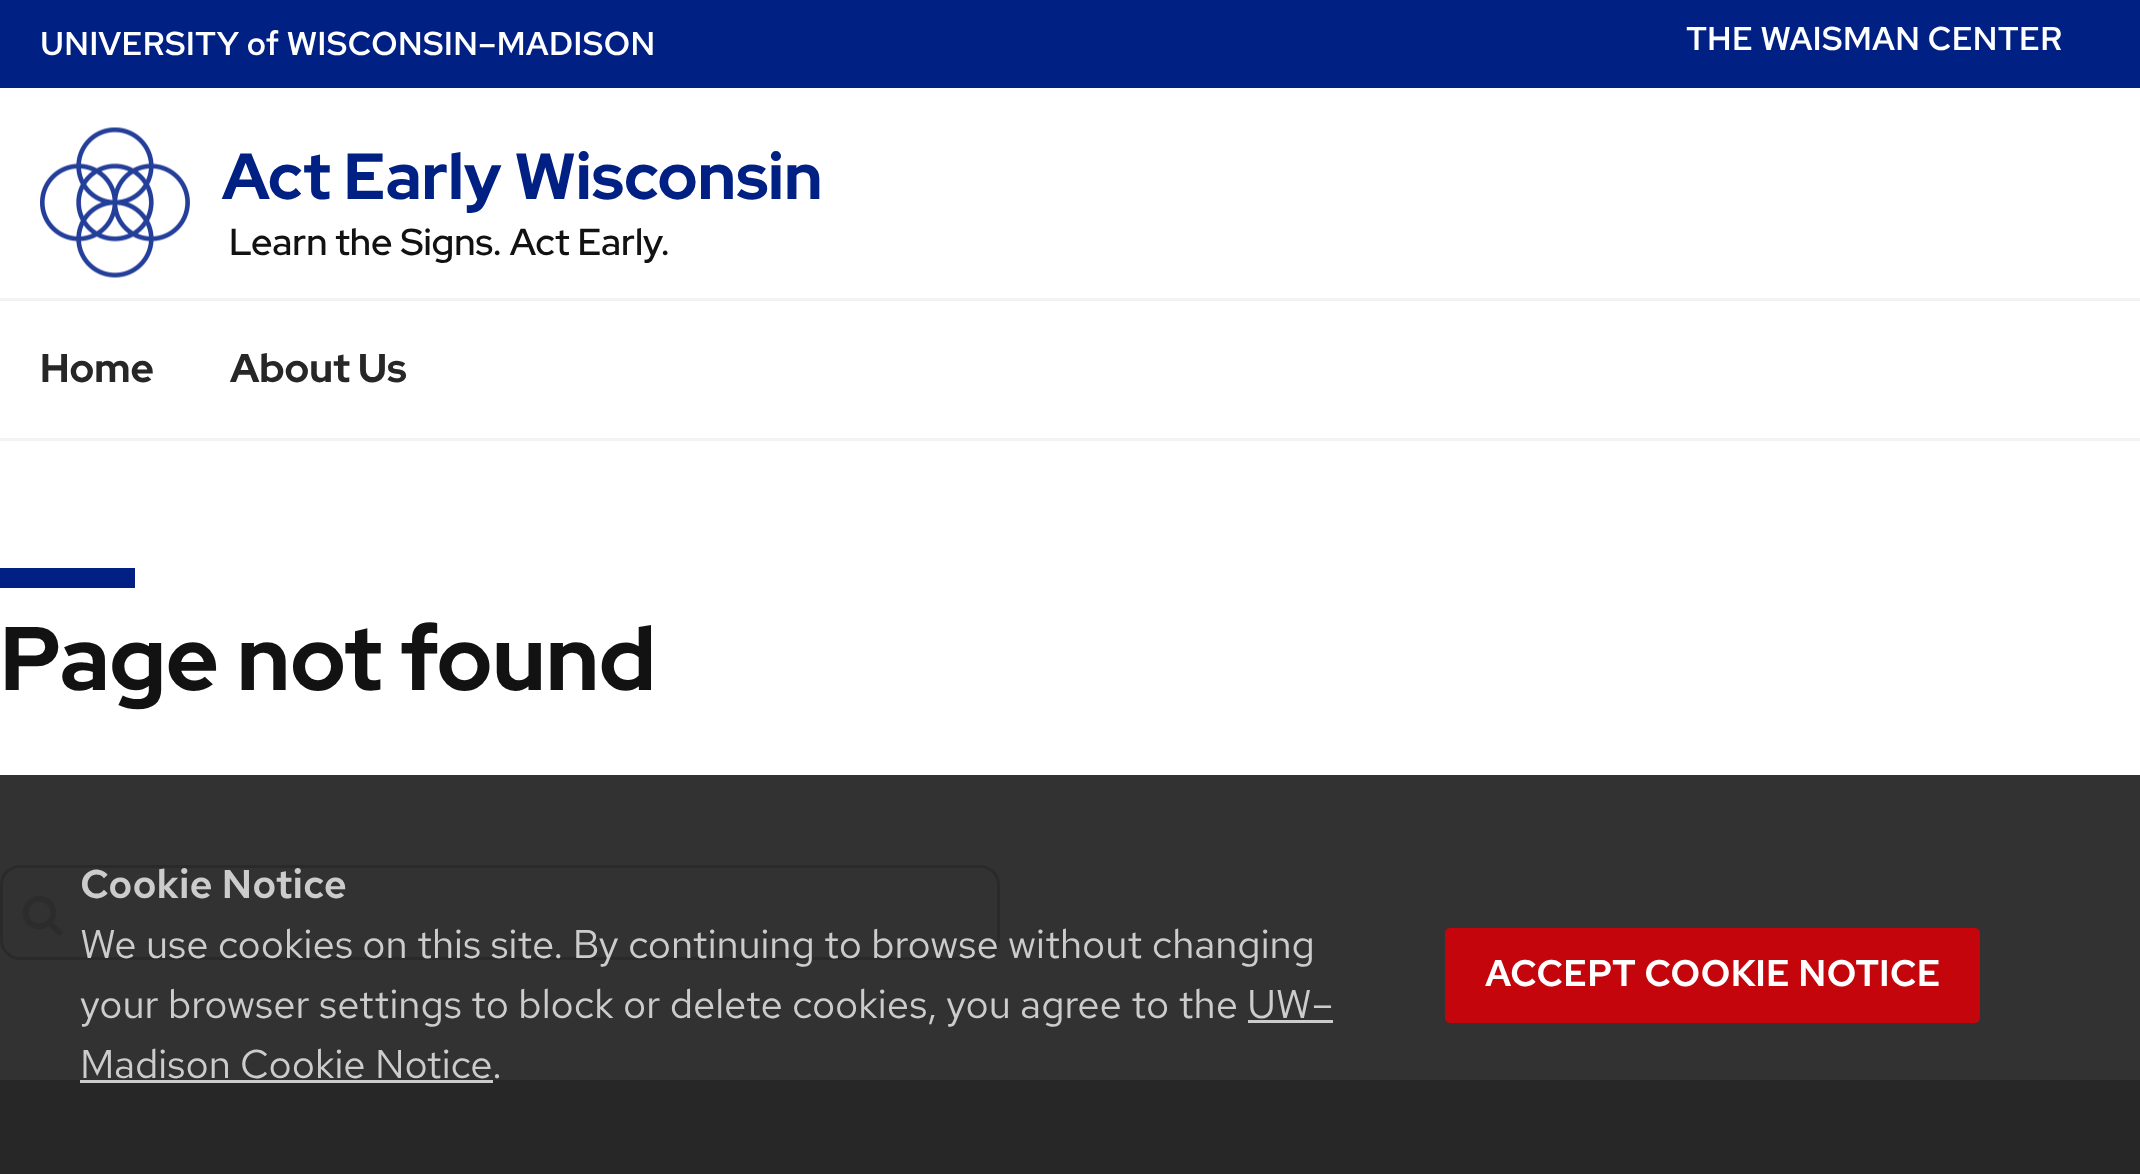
async function draw(canvas) {
  canvas.width = 2140
  canvas.height = 1174
  const ctx = canvas.getContext('2d')
  ctx.miterLimit = 4
  ctx.fontKerning = 'normal'
  async function loadImage(src) {
    const img = new Image()
    img.src = src
    await img.decode()
    return img
  }

  ctx.fillStyle = '#fff'
  ctx.fillRect(0, 0, 2140, 1174)
  ctx.fillStyle = '#002084'
  ctx.fillRect(0, 0, 2140, 88)
  ctx.font = '500 33px Red Hat Text'
  ctx.fillStyle = '#fff'
  ctx.fillText('THE WAISMAN CENTER', 1686, 50)
  ctx.fillStyle = '#f3f3f3'
  ctx.fillRect(0, 298, 2140, 3)
  ctx.fillRect(0, 438, 2140, 3)
  ctx.font = 'bold 40px Red Hat Display'
  ctx.fillStyle = '#282728'
  ctx.fillText('Home', 40, 382)
  ctx.fillText('About Us', 230, 382)
  ctx.font = '500 33px Red Hat Text'
  ctx.fillStyle = '#fff'
  ctx.fillText('UNIVERSITY of WISCONSIN–MADISON', 40, 55)
  ctx.drawImage(await loadImage('image0.png'), 40, 127, 150, 151)
  ctx.font = 'bold 65px Red Hat Display'
  ctx.fillStyle = '#002084'
  ctx.fillText('Act Early Wisconsin', 222, 199)
  ctx.font = '500 37.5px Red Hat Display'
  ctx.fillStyle = '#121212'
  ctx.fillText('Learn the Signs. Act Early.', 229, 255)
  ctx.fillStyle = '#002084'
  ctx.fillRect(0, 568, 135, 20)
  ctx.font = 'bold 90px Red Hat Display'
  ctx.fillStyle = '#121212'
  ctx.fillText('Page not found', 0, 690)
  ctx.drawImage(await loadImage('image1.png'), 23, 895, 40, 41)
  ctx.beginPath()
  ctx.roundRect(1.5, 866.5, 997, 92, 18.5)
  ctx.strokeStyle = '#646569'
  ctx.lineWidth = 3
  ctx.stroke()
  ctx.fillStyle = '#282728f2'
  ctx.fillRect(0, 775, 2140, 305)
  ctx.font = '600 40px Red Hat Text'
  ctx.fillStyle = '#ccc'
  ctx.fillText('Cookie Notice', 80, 898)
  ctx.font = '40px Red Hat Text'
  ctx.fillText('We use cookies on this site. By continuing to browse without changing', 80, 958)
  ctx.fillText('your browser settings to block or delete cookies, you agree to the UW–', 80, 1018)
  ctx.fillText('Madison Cookie Notice', 80, 1078)
  ctx.fillRect(1248, 1020, 85, 3)
  ctx.fillStyle = '#282728'
  ctx.fillRect(0, 1080, 2140, 94)
  ctx.fillStyle = '#ccc'
  ctx.fillRect(80, 1080, 413, 3)
  ctx.fillText('.', 492, 1078)
  ctx.fillStyle = '#c5050c'
  ctx.beginPath()
  ctx.roundRect(1445, 928, 535, 95, 5)
  ctx.fill()
  ctx.font = '600 37px Red Hat Text'
  ctx.fillStyle = '#fff'
  ctx.fillText('ACCEPT COOKIE NOTICE', 1485, 986)
}

draw(document.querySelector('canvas'))
